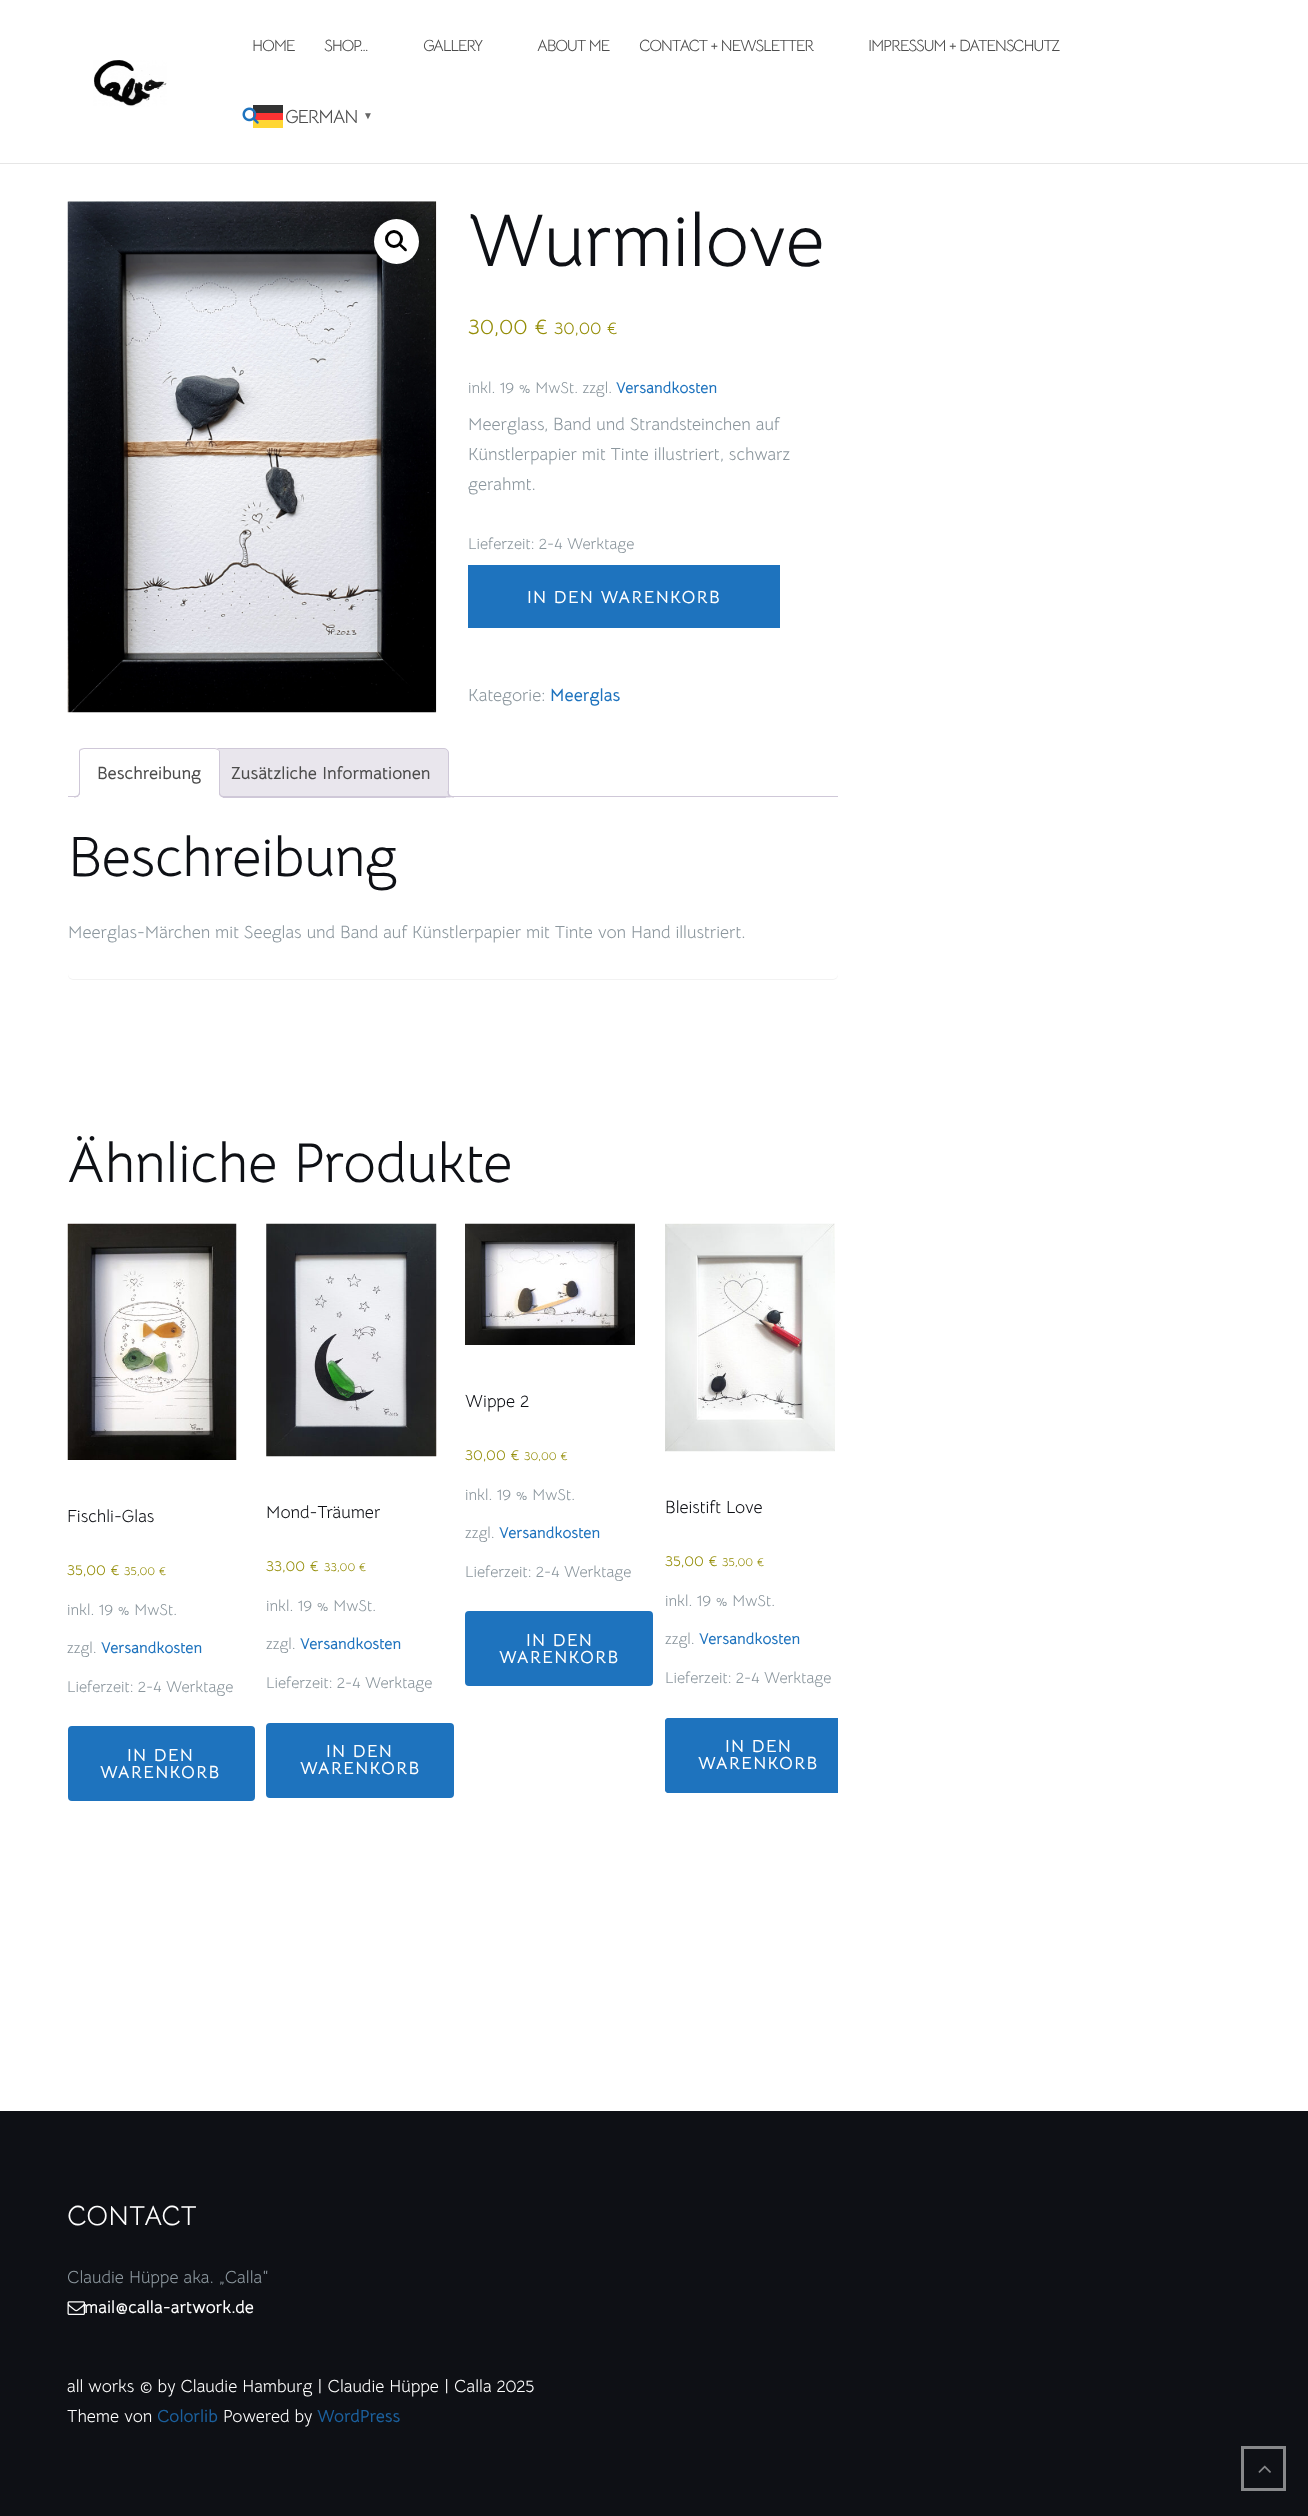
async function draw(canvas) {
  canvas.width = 1308
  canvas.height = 2516
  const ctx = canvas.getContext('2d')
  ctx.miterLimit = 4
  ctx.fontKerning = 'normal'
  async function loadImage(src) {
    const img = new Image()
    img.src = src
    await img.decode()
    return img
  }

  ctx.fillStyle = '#fff'
  ctx.fillRect(0, 0, 1308, 2516)
  ctx.fillStyle = '#e6e6e6'
  ctx.fillRect(0, 163, 1308, 1)
  ctx.drawImage(await loadImage('image0.png'), 93, 60, 74, 47)
  ctx.fillStyle = '#333'
  ctx.fillRect(253, 105, 30, 8)
  ctx.fillStyle = '#f33'
  ctx.fillRect(253, 113, 30, 7)
  ctx.fillStyle = '#ffd633'
  ctx.fillRect(253, 120, 30, 8)
  ctx.drawImage(await loadImage('image1.png'), 242, 107, 17, 17)
  ctx.letterSpacing = '-1.25px'
  ctx.font = '16.25px Bellota Text'
  ctx.fillStyle = '#4c4c4c'
  ctx.fillText('HOME', 252, 51)
  ctx.fillText('SHOP…', 324, 51)
  ctx.fillText('GALLERY', 423, 51)
  ctx.fillText('ABOUT ME', 537, 51)
  ctx.fillText('CONTACT + NEWSLETTER', 639, 51)
  ctx.fillText('IMPRESSUM + DATENSCHUTZ', 868, 51)
  ctx.font = '19px Bellota Text'
  ctx.fillText('GERMAN', 285, 123)
  ctx.font = 'bold 10px Liberation Serif'
  ctx.fillStyle = '#666'
  ctx.fillText('▼', 363, 119)
  ctx.drawImage(await loadImage('image2.png'), 67, 201, 370, 512)
  ctx.fillStyle = '#fff'
  ctx.beginPath()
  ctx.arc(396.5, 241.5, 22.5, 0, 2 * Math.PI)
  ctx.fill()
  ctx.beginPath()
  ctx.arc(394, 239, 7.5, 0, 2 * Math.PI)
  ctx.strokeStyle = '#000'
  ctx.lineWidth = 3
  ctx.stroke()
  ctx.fillStyle = '#000'
  ctx.beginPath()
  ctx.moveTo(399.5, 244)
  ctx.bezierCurveTo(401, 242.5, 403, 246, 404, 246.5)
  ctx.bezierCurveTo(405, 247.5, 408, 249.5, 406.5, 251)
  ctx.bezierCurveTo(405, 252.5, 403, 249, 402, 248.5)
  ctx.bezierCurveTo(401.5, 247.5, 398, 245.5, 399.5, 244)
  ctx.closePath()
  ctx.fill()
  ctx.letterSpacing = '0px'
  ctx.font = '75px Bellota Text'
  ctx.fillStyle = '#0e1015'
  ctx.fillText('Wurmilove', 468, 266)
  ctx.font = '22px Bellota Text'
  ctx.fillStyle = '#958e09'
  ctx.fillText('30,00 €', 468, 334)
  ctx.font = '17.5px Bellota Text'
  ctx.fillText('30,00 €', 554, 334)
  ctx.font = '15.75px Bellota Text'
  ctx.fillStyle = '#8c979e'
  ctx.fillText('inkl. 19 % MwSt. zzgl.', 468, 393)
  ctx.font = 'bold 15.75px Bellota Text'
  ctx.fillStyle = '#1e73be'
  ctx.fillText('Versandkosten', 616, 393)
  ctx.font = '17.5px Bellota Text'
  ctx.fillStyle = '#8c979e'
  ctx.fillText('Meerglass, Band und Strandsteinchen auf', 468, 430)
  ctx.fillText('Künstlerpapier mit Tinte illustriert, schwarz', 468, 460)
  ctx.fillText('gerahmt.', 468, 490)
  ctx.font = '15.75px Bellota Text'
  ctx.fillText('Lieferzeit: 2-4 Werktage', 468, 549)
  ctx.fillStyle = '#1e73be'
  ctx.fillRect(468, 565, 312, 63)
  ctx.letterSpacing = '1.25px'
  ctx.font = 'bold 17.5px Bellota Text'
  ctx.fillStyle = '#fff'
  ctx.fillText('IN DEN WARENKORB', 527, 603)
  ctx.letterSpacing = '0px'
  ctx.font = '17.5px Bellota Text'
  ctx.fillStyle = '#8c979e'
  ctx.fillText('Kategorie:', 468, 701)
  ctx.font = 'bold 17.5px Bellota Text'
  ctx.fillStyle = '#1e73be'
  ctx.fillText('Meerglas', 550, 701)
  ctx.fillStyle = '#e9e6ed'
  ctx.beginPath()
  ctx.roundRect(213.5, 748.5, 235, 49, [4.5, 4.5, 0, 0])
  ctx.fill()
  ctx.strokeStyle = '#cfc8d8'
  ctx.lineWidth = 1
  ctx.stroke()
  ctx.save()
  ctx.beginPath()
  ctx.rect(68, 748, 770, 50)
  ctx.clip()
  ctx.beginPath()
  ctx.moveTo(445, 794)
  ctx.bezierCurveTo(445, 798, 447, 800, 451, 800)
  ctx.lineTo(451, 797.5)
  ctx.bezierCurveTo(449.5, 797, 448, 795.5, 447.5, 794)
  ctx.closePath()
  ctx.fill()
  ctx.restore()
  ctx.fillStyle = '#cfc8d8'
  ctx.beginPath()
  ctx.moveTo(447.5, 791)
  ctx.lineTo(454, 791)
  ctx.lineTo(454, 797.5)
  ctx.bezierCurveTo(450.5, 797.5, 447.5, 796, 447.5, 792.5)
  ctx.closePath()
  ctx.moveTo(449, 791)
  ctx.lineTo(454, 791)
  ctx.lineTo(454, 796)
  ctx.bezierCurveTo(451.5, 796, 449, 795.5, 449, 792.5)
  ctx.closePath()
  ctx.fill('evenodd')
  ctx.fillRect(68, 796, 770, 1)
  ctx.fillStyle = '#fff'
  ctx.beginPath()
  ctx.roundRect(79, 748, 141, 50, [5, 5, 0, 0])
  ctx.fill()
  ctx.fillStyle = '#cfc8d8'
  ctx.beginPath()
  ctx.moveTo(84, 748)
  ctx.lineTo(80, 749)
  ctx.lineTo(81, 750)
  ctx.lineTo(84, 749)
  ctx.lineTo(215, 749)
  ctx.lineTo(218, 750)
  ctx.lineTo(218, 749)
  ctx.lineTo(215, 748)
  ctx.closePath()
  ctx.fill()
  ctx.beginPath()
  ctx.moveTo(220, 798)
  ctx.lineTo(220, 751)
  ctx.lineTo(218, 749)
  ctx.lineTo(218, 750)
  ctx.lineTo(219, 751)
  ctx.lineTo(219, 796)
  ctx.lineTo(218, 796)
  ctx.closePath()
  ctx.fill()
  ctx.fillStyle = '#fff'
  ctx.beginPath()
  ctx.moveTo(220, 798)
  ctx.lineTo(79, 798)
  ctx.lineTo(80, 796)
  ctx.lineTo(218, 796)
  ctx.closePath()
  ctx.fill()
  ctx.fillStyle = '#cfc8d8'
  ctx.beginPath()
  ctx.moveTo(80, 749)
  ctx.lineTo(79, 751)
  ctx.lineTo(79, 797)
  ctx.lineTo(80, 796)
  ctx.lineTo(80, 751)
  ctx.lineTo(81, 750)
  ctx.closePath()
  ctx.fill()
  ctx.fillStyle = '#4c4c4c'
  ctx.fillText('Beschreibung', 97, 779)
  ctx.save()
  ctx.beginPath()
  ctx.rect(68, 748, 770, 50)
  ctx.clip()
  ctx.fillStyle = '#fff'
  ctx.beginPath()
  ctx.moveTo(76, 797.5)
  ctx.lineTo(76, 800)
  ctx.bezierCurveTo(80.5, 800, 83, 799, 83, 794)
  ctx.lineTo(80, 794)
  ctx.bezierCurveTo(79, 795.5, 78, 797, 76, 797.5)
  ctx.closePath()
  ctx.fill()
  ctx.restore()
  ctx.fillStyle = '#cfc8d8'
  ctx.beginPath()
  ctx.moveTo(74, 791)
  ctx.lineTo(80, 791)
  ctx.bezierCurveTo(80, 795.5, 78, 797.5, 74, 797.5)
  ctx.closePath()
  ctx.moveTo(74, 791)
  ctx.lineTo(79, 791)
  ctx.bezierCurveTo(79, 795, 77.5, 796, 74, 796)
  ctx.closePath()
  ctx.fill('evenodd')
  ctx.save()
  ctx.beginPath()
  ctx.rect(68, 748, 770, 50)
  ctx.clip()
  ctx.fillStyle = '#fff'
  ctx.beginPath()
  ctx.moveTo(216, 794)
  ctx.bezierCurveTo(216, 799, 218.5, 800, 223, 800)
  ctx.lineTo(223, 797.5)
  ctx.bezierCurveTo(221, 797, 219.5, 796, 219, 794)
  ctx.closePath()
  ctx.fill()
  ctx.restore()
  ctx.beginPath()
  ctx.moveTo(219, 791)
  ctx.lineTo(225, 791)
  ctx.lineTo(225, 797.5)
  ctx.bezierCurveTo(222, 797.5, 219, 796, 219, 792.5)
  ctx.closePath()
  ctx.moveTo(220, 791)
  ctx.lineTo(225, 791)
  ctx.lineTo(225, 796)
  ctx.bezierCurveTo(222.5, 796, 220, 795.5, 220, 792.5)
  ctx.closePath()
  ctx.fill('evenodd')
  ctx.fillStyle = '#4c4c4c'
  ctx.fillText('Zusätzliche Informationen', 231, 779)
  ctx.fillStyle = '#0000000d'
  ctx.filter = 'blur(0.5px)'
  ctx.beginPath()
  ctx.roundRect(68, 828, 770, 152, 5)
  ctx.fill()
  ctx.filter = 'none'
  ctx.fillStyle = '#fff'
  ctx.beginPath()
  ctx.roundRect(68, 826, 770, 153, 5)
  ctx.fill()
  ctx.font = '56.25px Bellota Text'
  ctx.fillStyle = '#0e1015'
  ctx.fillText('Beschreibung', 68, 876)
  ctx.font = '17.5px Bellota Text'
  ctx.fillStyle = '#8c979e'
  ctx.fillText('Meerglas-Märchen mit Seeglas und Band auf Künstlerpapier mit Tinte von Hand illustriert.', 68, 938)
  ctx.font = '56.25px Bellota Text'
  ctx.fillStyle = '#0e1015'
  ctx.fillText('Ähnliche Produkte', 67, 1182)
  ctx.drawImage(await loadImage('image3.png'), 67, 1223, 170, 237)
  ctx.font = '17.5px Bellota Text'
  ctx.fillText('Fischli-Glas', 67, 1522)
  ctx.font = '15px Bellota Text'
  ctx.fillStyle = '#958e09'
  ctx.fillText('35,00 €', 67, 1575)
  ctx.font = '12px Bellota Text'
  ctx.fillText('35,00 €', 124, 1575)
  ctx.font = '15.75px Bellota Text'
  ctx.fillStyle = '#8c979e'
  ctx.fillText('inkl. 19 % MwSt.', 67, 1615)
  ctx.fillText('zzgl.', 67, 1653)
  ctx.font = 'bold 15.75px Bellota Text'
  ctx.fillStyle = '#1e73be'
  ctx.fillText('Versandkosten', 101, 1653)
  ctx.font = '15.75px Bellota Text'
  ctx.fillStyle = '#8c979e'
  ctx.fillText('Lieferzeit: 2-4 Werktage', 67, 1692)
  ctx.fillStyle = '#1e73be'
  ctx.beginPath()
  ctx.roundRect(69.5, 1727.5, 184, 72, 2.5)
  ctx.fill()
  ctx.strokeStyle = '#1e73be'
  ctx.lineWidth = 3
  ctx.stroke()
  ctx.letterSpacing = '1.25px'
  ctx.font = 'bold 17.5px Bellota Text'
  ctx.fillStyle = '#fff'
  ctx.fillText('IN DEN', 127, 1761)
  ctx.fillText('WARENKORB', 100, 1778)
  ctx.drawImage(await loadImage('image4.png'), 266, 1223, 171, 234)
  ctx.letterSpacing = '0px'
  ctx.font = '17.5px Bellota Text'
  ctx.fillStyle = '#0e1015'
  ctx.fillText('Mond-Träumer', 266, 1518)
  ctx.font = '15px Bellota Text'
  ctx.fillStyle = '#958e09'
  ctx.fillText('33,00 €', 266, 1571)
  ctx.font = '12px Bellota Text'
  ctx.fillText('33,00 €', 324, 1571)
  ctx.font = '15.75px Bellota Text'
  ctx.fillStyle = '#8c979e'
  ctx.fillText('inkl. 19 % MwSt.', 266, 1611)
  ctx.fillText('zzgl.', 266, 1649)
  ctx.font = 'bold 15.75px Bellota Text'
  ctx.fillStyle = '#1e73be'
  ctx.fillText('Versandkosten', 300, 1649)
  ctx.font = '15.75px Bellota Text'
  ctx.fillStyle = '#8c979e'
  ctx.fillText('Lieferzeit: 2-4 Werktage', 266, 1688)
  ctx.fillStyle = '#1e73be'
  ctx.beginPath()
  ctx.roundRect(267.5, 1724.5, 185, 72, 2.5)
  ctx.fill()
  ctx.stroke()
  ctx.letterSpacing = '1.25px'
  ctx.font = 'bold 17.5px Bellota Text'
  ctx.fillStyle = '#fff'
  ctx.fillText('IN DEN', 326, 1757)
  ctx.fillText('WARENKORB', 300, 1774)
  ctx.drawImage(await loadImage('image5.png'), 465, 1223, 170, 122)
  ctx.letterSpacing = '0px'
  ctx.font = '17.5px Bellota Text'
  ctx.fillStyle = '#0e1015'
  ctx.fillText('Wippe 2', 465, 1407)
  ctx.font = '15px Bellota Text'
  ctx.fillStyle = '#958e09'
  ctx.fillText('30,00 €', 465, 1460)
  ctx.font = '12px Bellota Text'
  ctx.fillText('30,00 €', 524, 1460)
  ctx.font = '15.75px Bellota Text'
  ctx.fillStyle = '#8c979e'
  ctx.fillText('inkl. 19 % MwSt.', 465, 1500)
  ctx.fillText('zzgl.', 465, 1538)
  ctx.font = 'bold 15.75px Bellota Text'
  ctx.fillStyle = '#1e73be'
  ctx.fillText('Versandkosten', 499, 1538)
  ctx.font = '15.75px Bellota Text'
  ctx.fillStyle = '#8c979e'
  ctx.fillText('Lieferzeit: 2-4 Werktage', 465, 1577)
  ctx.fillStyle = '#1e73be'
  ctx.beginPath()
  ctx.roundRect(466.5, 1612.5, 185, 72, 2.5)
  ctx.fill()
  ctx.stroke()
  ctx.letterSpacing = '1.25px'
  ctx.font = 'bold 17.5px Bellota Text'
  ctx.fillStyle = '#fff'
  ctx.fillText('IN DEN', 526, 1646)
  ctx.fillText('WARENKORB', 499, 1663)
  ctx.drawImage(await loadImage('image6.png'), 665, 1223, 170, 229)
  ctx.letterSpacing = '0px'
  ctx.font = '17.5px Bellota Text'
  ctx.fillStyle = '#0e1015'
  ctx.fillText('Bleistift Love', 665, 1513)
  ctx.font = '15px Bellota Text'
  ctx.fillStyle = '#958e09'
  ctx.fillText('35,00 €', 665, 1566)
  ctx.font = '12px Bellota Text'
  ctx.fillText('35,00 €', 722, 1566)
  ctx.font = '15.75px Bellota Text'
  ctx.fillStyle = '#8c979e'
  ctx.fillText('inkl. 19 % MwSt.', 665, 1606)
  ctx.fillText('zzgl.', 665, 1644)
  ctx.font = 'bold 15.75px Bellota Text'
  ctx.fillStyle = '#1e73be'
  ctx.fillText('Versandkosten', 699, 1644)
  ctx.font = '15.75px Bellota Text'
  ctx.fillStyle = '#8c979e'
  ctx.fillText('Lieferzeit: 2-4 Werktage', 665, 1683)
  ctx.fillStyle = '#1e73be'
  ctx.beginPath()
  ctx.roundRect(665, 1718, 173, 75, [4, 0, 0, 4])
  ctx.fill()
  ctx.save()
  ctx.beginPath()
  ctx.rect(68, 1014, 770, 977)
  ctx.clip()
  ctx.beginPath()
  ctx.roundRect(666.5, 1719.5, 185, 72, 2.5)
  ctx.stroke()
  ctx.restore()
  ctx.letterSpacing = '1.25px'
  ctx.font = 'bold 17.5px Bellota Text'
  ctx.fillStyle = '#fff'
  ctx.fillText('IN DEN', 725, 1752)
  ctx.fillText('WARENKORB', 698, 1769)
  ctx.fillStyle = '#0e1015'
  ctx.fillRect(0, 2111, 1308, 405)
  ctx.letterSpacing = '0px'
  ctx.font = '27.5px Bellota Text'
  ctx.fillStyle = '#fff'
  ctx.fillText('CONTACT', 67, 2225)
  ctx.font = '17.5px Bellota Text'
  ctx.fillStyle = '#8c979e'
  ctx.fillText('Claudie Hüppe aka. „Calla“', 67, 2283)
  ctx.drawImage(await loadImage('image7.png'), 67, 2301, 18, 14)
  ctx.font = 'bold 17.5px Bellota Text'
  ctx.fillStyle = '#fff'
  ctx.fillText('mail@calla-artwork.de', 84, 2313)
  ctx.font = '17.5px Bellota Text'
  ctx.fillText('all works © by Claudie Hamburg | Claudie Hüppe | Calla 2025', 67, 2392)
  ctx.fillText('Theme von', 67, 2422)
  ctx.font = 'bold 17.5px Bellota Text'
  ctx.fillStyle = '#1b5f9c'
  ctx.fillText('Colorlib', 157, 2422)
  ctx.font = '17.5px Bellota Text'
  ctx.fillStyle = '#fff'
  ctx.fillText('Powered by', 223, 2422)
  ctx.font = 'bold 17.5px Bellota Text'
  ctx.fillStyle = '#1b5f9c'
  ctx.fillText('WordPress', 317, 2422)
  ctx.strokeStyle = '#87888a'
  ctx.strokeRect(1242.5, 2447.5, 42, 42)
  ctx.drawImage(await loadImage('image8.png'), 1258, 2465, 13, 8)
}

draw(document.querySelector('canvas'))
